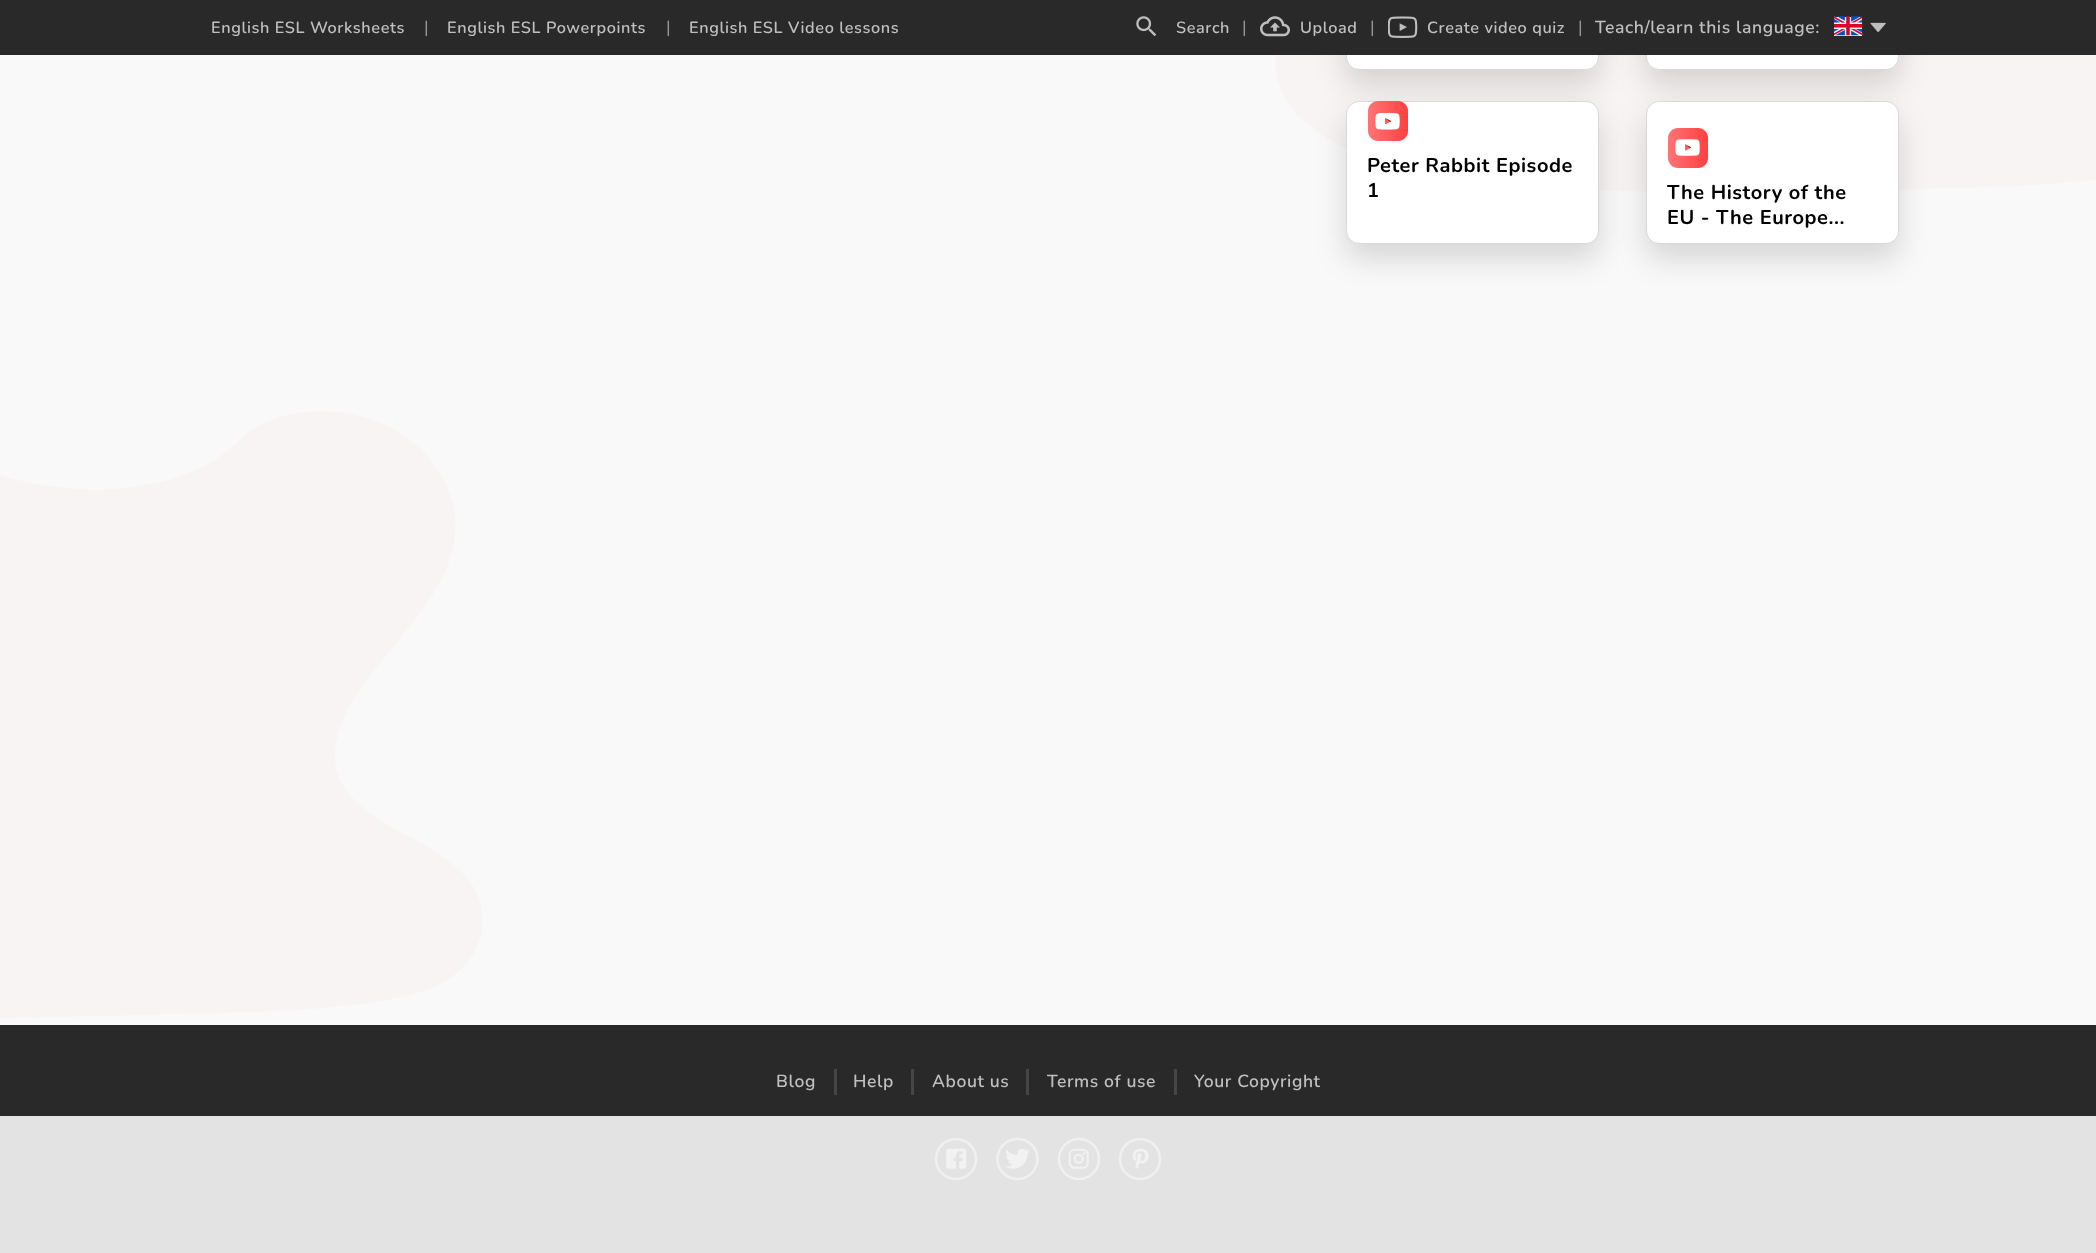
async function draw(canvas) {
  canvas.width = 2096
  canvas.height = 1253
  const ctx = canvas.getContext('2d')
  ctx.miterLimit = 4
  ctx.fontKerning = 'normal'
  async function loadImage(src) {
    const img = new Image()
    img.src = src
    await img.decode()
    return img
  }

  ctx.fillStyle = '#f9f9f9'
  ctx.fillRect(0, 0, 2096, 1253)
  ctx.drawImage(await loadImage('image6.png'), 1275, 55, 821, 137)
  ctx.fillStyle = '#00000024'
  ctx.filter = 'blur(15px)'
  ctx.beginPath()
  ctx.roundRect(1346, -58, 253, 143, 13)
  ctx.fill()
  ctx.filter = 'none'
  ctx.fillStyle = '#fff'
  ctx.beginPath()
  ctx.roundRect(1346.5, -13.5, 252, 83, 12.5)
  ctx.fill()
  ctx.strokeStyle = '#d9d9d9'
  ctx.stroke()
  ctx.fillStyle = '#00000024'
  ctx.filter = 'blur(15px)'
  ctx.beginPath()
  ctx.roundRect(1646, -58, 253, 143, 13)
  ctx.fill()
  ctx.filter = 'none'
  ctx.fillStyle = '#fff'
  ctx.beginPath()
  ctx.roundRect(1646.5, -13.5, 252, 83, 12.5)
  ctx.fill()
  ctx.stroke()
  ctx.fillStyle = '#292929'
  ctx.fillRect(0, 0, 2096, 55)
  ctx.letterSpacing = '0.6px'
  ctx.font = '200 16.25px "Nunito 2"'
  ctx.fillStyle = '#bfbfbf'
  ctx.fillText('English ESL Worksheets', 211, 33)
  ctx.letterSpacing = '0px'
  ctx.font = '200 17.5px "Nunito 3"'
  ctx.fillStyle = '#949494'
  ctx.fillText('|', 424, 33)
  ctx.letterSpacing = '0.6px'
  ctx.font = '200 16.25px "Nunito 2"'
  ctx.fillStyle = '#bfbfbf'
  ctx.fillText('English ESL Powerpoints', 447, 33)
  ctx.letterSpacing = '0px'
  ctx.font = '200 17.5px "Nunito 3"'
  ctx.fillStyle = '#949494'
  ctx.fillText('|', 666, 33)
  ctx.letterSpacing = '0.6px'
  ctx.font = '200 16.25px "Nunito 2"'
  ctx.fillStyle = '#bfbfbf'
  ctx.fillText('English ESL Video lessons', 689, 33)
  ctx.drawImage(await loadImage('image0.png'), 1136, 16, 21, 21)
  ctx.fillText('Search', 1176, 33)
  ctx.letterSpacing = '0px'
  ctx.font = '200 17.5px "Nunito 3"'
  ctx.fillStyle = '#949494'
  ctx.fillText('|', 1242, 33)
  ctx.drawImage(await loadImage('image1.png'), 1260, 16, 30, 21)
  ctx.letterSpacing = '0.6px'
  ctx.font = '200 16.25px "Nunito 2"'
  ctx.fillStyle = '#bfbfbf'
  ctx.fillText('Upload', 1300, 33)
  ctx.letterSpacing = '0px'
  ctx.font = '200 17.5px "Nunito 3"'
  ctx.fillStyle = '#949494'
  ctx.fillText('|', 1370, 33)
  ctx.drawImage(await loadImage('image2.png'), 1388, 16, 30, 22)
  ctx.letterSpacing = '0.6px'
  ctx.font = '200 16.25px "Nunito 2"'
  ctx.fillStyle = '#bfbfbf'
  ctx.fillText('Create video quiz', 1427, 33)
  ctx.letterSpacing = '0px'
  ctx.font = '200 17.5px "Nunito 3"'
  ctx.fillStyle = '#949494'
  ctx.fillText('|', 1578, 33)
  ctx.letterSpacing = '0.6px'
  ctx.font = '200 17.5px "Nunito 2"'
  ctx.fillStyle = '#bfbfbf'
  ctx.fillText('Teach/learn this language:', 1595, 33)
  ctx.drawImage(await loadImage('image3.png'), 1834, 16, 29, 20)
  ctx.drawImage(await loadImage('image4.png'), 1870, 22, 16, 11)
  ctx.drawImage(await loadImage('image5.png'), 0, 411, 483, 607)
  ctx.fillStyle = '#00000024'
  ctx.filter = 'blur(15px)'
  ctx.beginPath()
  ctx.roundRect(1346, 116, 253, 143, 13)
  ctx.fill()
  ctx.filter = 'none'
  ctx.fillStyle = '#fff'
  ctx.beginPath()
  ctx.roundRect(1346.5, 101.5, 252, 142, 12.5)
  ctx.fill()
  ctx.stroke()
  ctx.drawImage(await loadImage('image7.png'), 1368, 101, 40, 40)
  ctx.letterSpacing = '0.55px'
  ctx.font = '200 20px Nunito'
  ctx.fillStyle = '#000'
  ctx.fillText('Peter Rabbit Episode', 1367, 172)
  ctx.fillText('1', 1367, 197)
  ctx.fillStyle = '#00000024'
  ctx.filter = 'blur(15px)'
  ctx.beginPath()
  ctx.roundRect(1646, 116, 253, 143, 13)
  ctx.fill()
  ctx.filter = 'none'
  ctx.fillStyle = '#fff'
  ctx.beginPath()
  ctx.roundRect(1646.5, 101.5, 252, 142, 12.5)
  ctx.fill()
  ctx.stroke()
  ctx.drawImage(await loadImage('image8.png'), 1668, 128, 40, 40)
  ctx.fillStyle = '#000'
  ctx.fillText('The History of the', 1667, 199)
  ctx.fillText('EU - The Europe...', 1667, 224)
  ctx.fillStyle = '#292929'
  ctx.fillRect(0, 1025, 2096, 228)
  ctx.letterSpacing = '0.6px'
  ctx.font = '200 17.5px "Nunito 2"'
  ctx.fillStyle = '#bfbfbf'
  ctx.fillText('Blog', 776, 1087)
  ctx.fillStyle = '#464646'
  ctx.fillRect(834, 1069, 3, 26)
  ctx.fillStyle = '#bfbfbf'
  ctx.fillText('Help', 853, 1087)
  ctx.fillStyle = '#464646'
  ctx.fillRect(911, 1069, 3, 26)
  ctx.fillStyle = '#bfbfbf'
  ctx.fillText('About us', 932, 1087)
  ctx.fillStyle = '#464646'
  ctx.fillRect(1026, 1069, 3, 26)
  ctx.fillStyle = '#bfbfbf'
  ctx.fillText('Terms of use', 1047, 1087)
  ctx.fillStyle = '#464646'
  ctx.fillRect(1174, 1069, 3, 26)
  ctx.fillStyle = '#bfbfbf'
  ctx.fillText('Your Copyright', 1194, 1087)
  ctx.drawImage(await loadImage('image9.png'), 935, 1138, 43, 42)
  ctx.drawImage(await loadImage('image10.png'), 996, 1138, 43, 42)
  ctx.drawImage(await loadImage('image11.png'), 1058, 1138, 42, 42)
  ctx.drawImage(await loadImage('image12.png'), 1119, 1138, 42, 42)
  ctx.fillStyle = '#f7f7f7e6'
  ctx.fillRect(0, 1116, 2096, 137)
}

draw(document.querySelector('canvas'))
